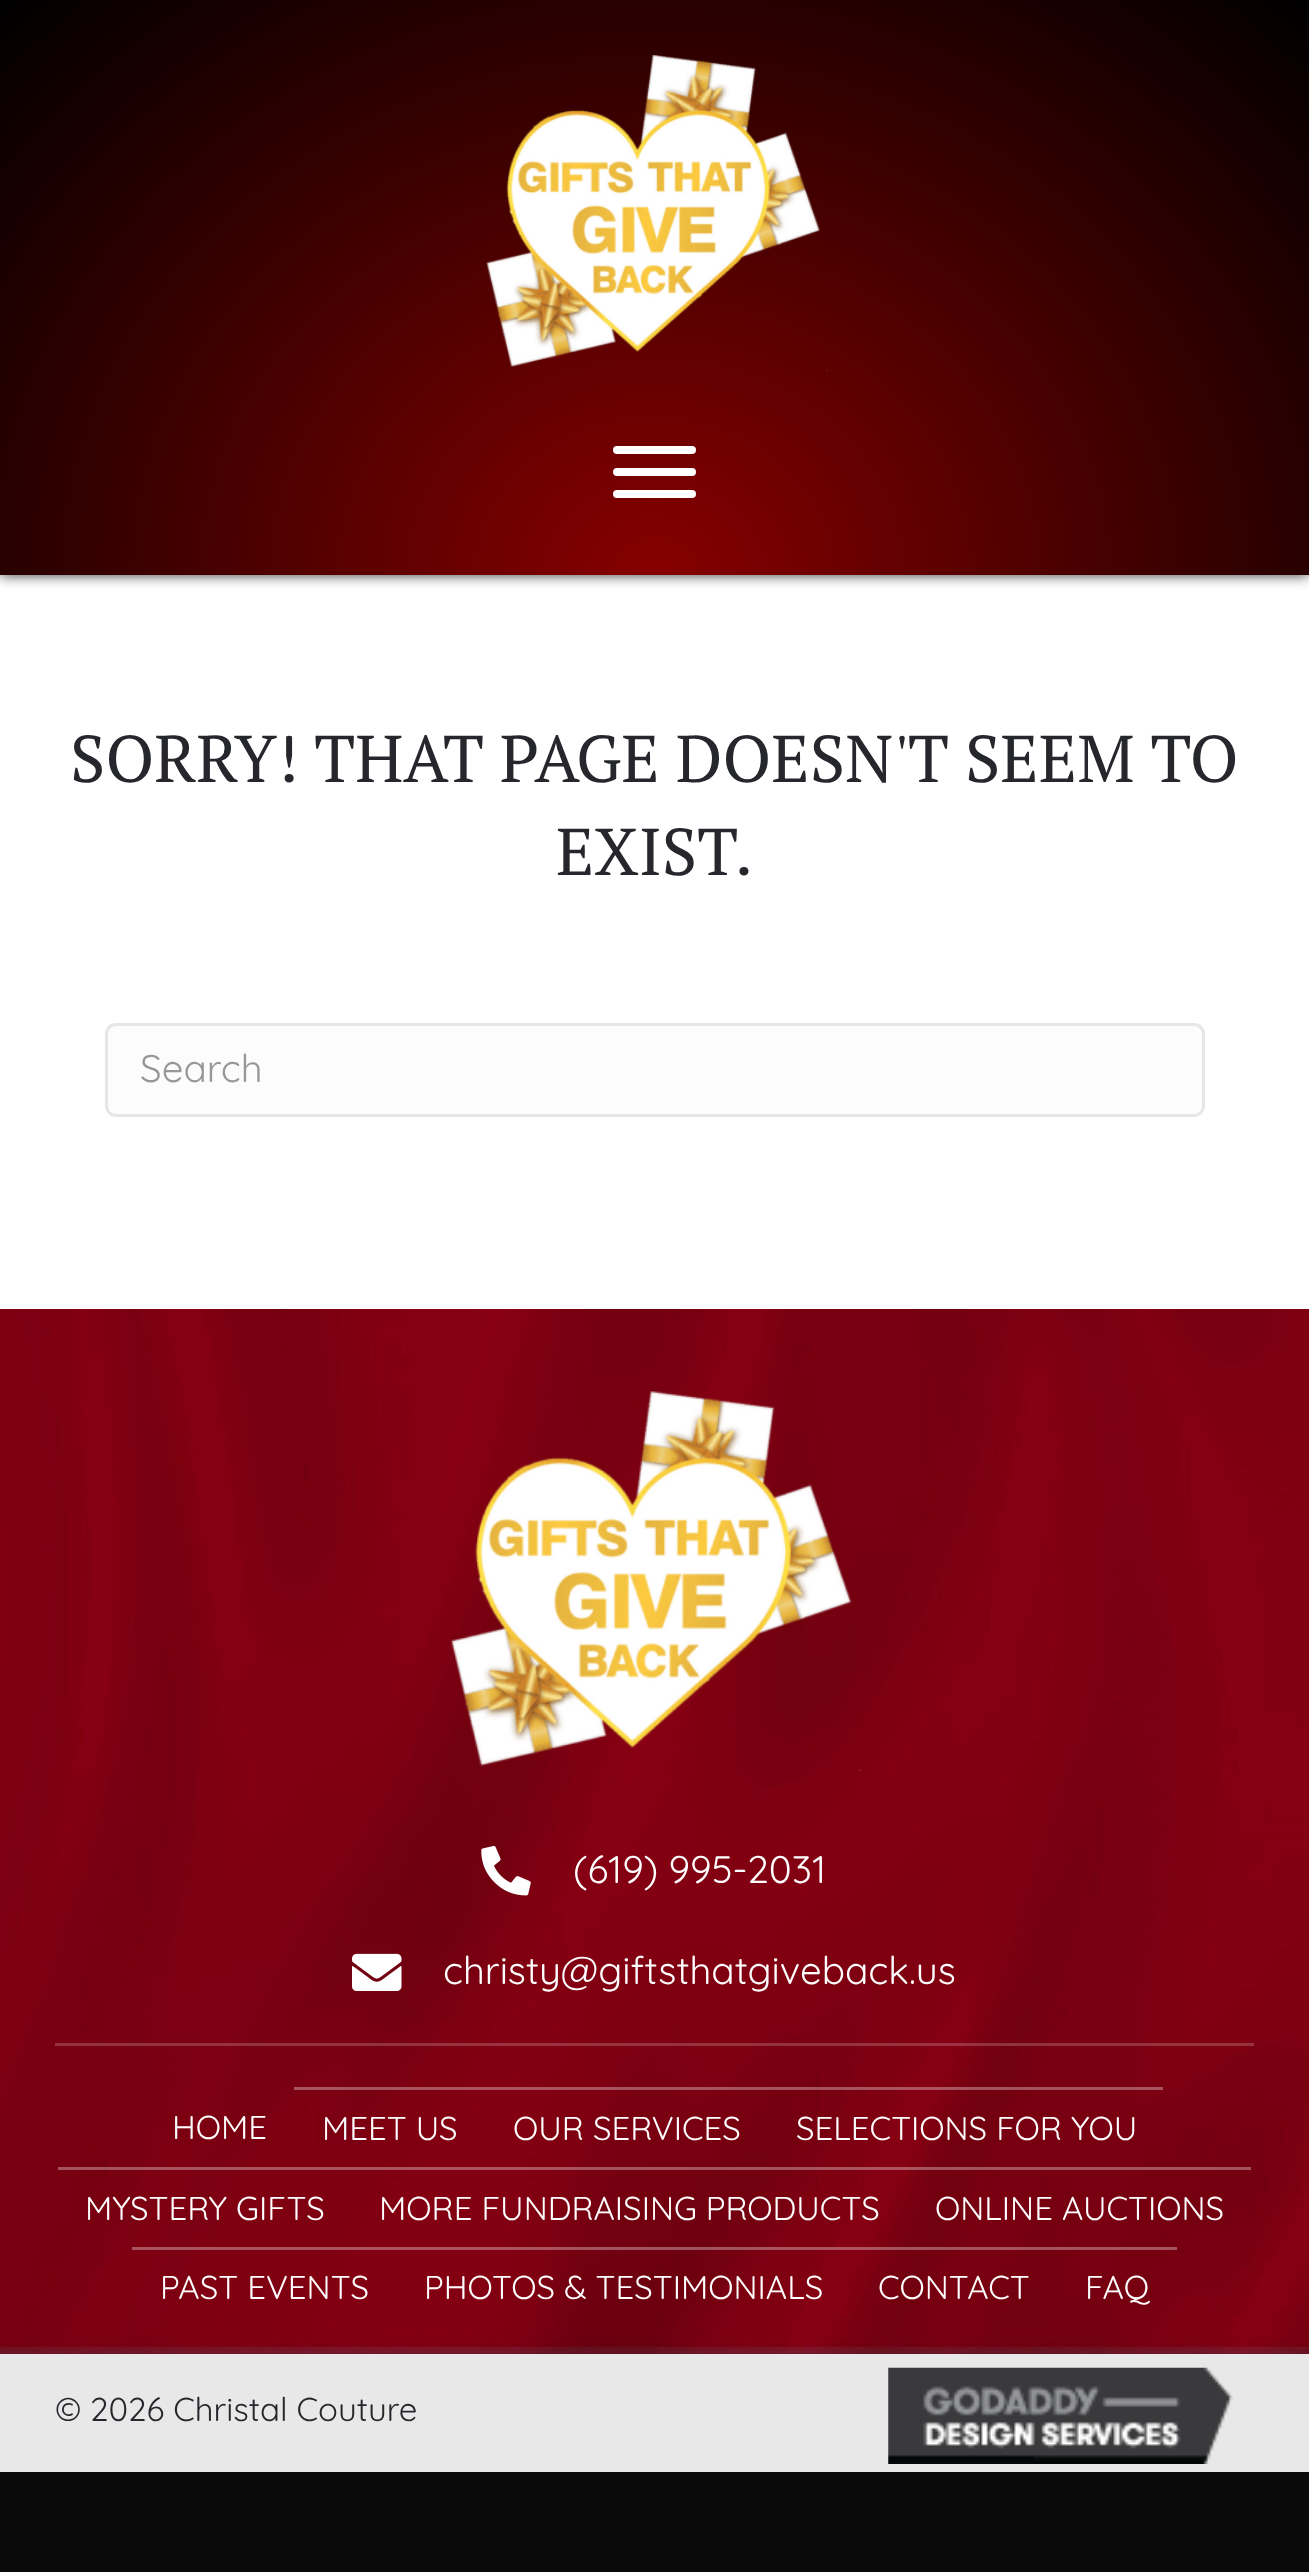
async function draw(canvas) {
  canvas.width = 1309
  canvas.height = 2572
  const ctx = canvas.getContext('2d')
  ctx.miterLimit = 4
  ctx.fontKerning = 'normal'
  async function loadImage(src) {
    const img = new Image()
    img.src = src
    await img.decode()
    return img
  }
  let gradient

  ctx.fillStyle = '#0a0a0a'
  ctx.fillRect(0, 0, 1309, 2572)
  ctx.fillStyle = '#fff'
  ctx.fillRect(0, 575, 1309, 734)
  ctx.fillStyle = '#333'
  ctx.filter = 'blur(7px)'
  ctx.beginPath()
  ctx.rect(0, 0, 1309, 575)
  ctx.fill()
  ctx.filter = 'none'
  gradient = ctx.createRadialGradient(655, 654.92, 0, 655, 654.92, 926)
  gradient.addColorStop(0, '#870000')
  gradient.addColorStop(1, '#000')
  ctx.fillStyle = gradient
  ctx.beginPath()
  ctx.rect(0, 0, 1309, 575)
  ctx.save()
  ctx.clip()
  ctx.scale(1, 813 / 926)
  ctx.fillRect(0, 0, 1309, 2930)
  ctx.restore()
  ctx.drawImage(await loadImage('image0.png'), 486, 55, 342, 317)
  ctx.fillStyle = '#fff'
  ctx.beginPath()
  ctx.roundRect(613, 468, 83, 8, 4)
  ctx.fill()
  ctx.beginPath()
  ctx.roundRect(613, 446, 83, 8, 4)
  ctx.fill()
  ctx.beginPath()
  ctx.roundRect(613, 490, 83, 8, 4)
  ctx.fill()
  ctx.font = '66px PT Serif'
  ctx.fillStyle = '#26272c'
  ctx.fillText('SORRY! THAT PAGE DOESN\'T SEEM TO', 70, 782)
  ctx.fillText('EXIST.', 556, 875)
  ctx.fillStyle = '#fcfcfc'
  ctx.beginPath()
  ctx.roundRect(106.5, 1024.5, 1097, 91, 9.5)
  ctx.fill()
  ctx.strokeStyle = '#e6e6e6'
  ctx.lineWidth = 3
  ctx.stroke()
  ctx.font = '38.5px Quicksand'
  ctx.fillStyle = '#979797'
  ctx.fillText('Search', 140, 1082)
  ctx.drawImage(await loadImage('image1.png'), 0, 1309, 1309, 1045)
  ctx.drawImage(await loadImage('image2.png'), 450, 1391, 411, 380)
  ctx.drawImage(await loadImage('image3.png'), 481, 1845, 50, 51)
  ctx.fillStyle = '#fff'
  ctx.fillText('(619) 995-2031', 573, 1883)
  ctx.drawImage(await loadImage('image4.png'), 352, 1953, 50, 38)
  ctx.fillText('christy@giftsthatgiveback.us', 443, 1984)
  ctx.fillStyle = '#ffffff33'
  ctx.fillRect(55, 2043, 1199, 3)
  ctx.font = '33px Quicksand'
  ctx.fillStyle = '#fff'
  ctx.fillText('HOME', 172, 2139)
  ctx.fillStyle = '#ffffff54'
  ctx.fillRect(294, 2087, 190, 3)
  ctx.fillStyle = '#fff'
  ctx.fillText('MEET US', 322, 2140)
  ctx.fillStyle = '#ffffff54'
  ctx.fillRect(484, 2087, 283, 3)
  ctx.fillStyle = '#fff'
  ctx.fillText('OUR SERVICES', 513, 2140)
  ctx.fillStyle = '#ffffff54'
  ctx.fillRect(767, 2087, 396, 3)
  ctx.fillStyle = '#fff'
  ctx.fillText('SELECTIONS FOR YOU', 796, 2140)
  ctx.fillStyle = '#ffffff54'
  ctx.fillRect(58, 2167, 294, 3)
  ctx.fillStyle = '#fff'
  ctx.fillText('MYSTERY GIFTS', 85, 2220)
  ctx.fillStyle = '#ffffff54'
  ctx.fillRect(352, 2167, 556, 3)
  ctx.fillStyle = '#fff'
  ctx.fillText('MORE FUNDRAISING PRODUCTS', 379, 2220)
  ctx.fillStyle = '#ffffff54'
  ctx.fillRect(908, 2167, 343, 3)
  ctx.fillStyle = '#fff'
  ctx.fillText('ONLINE AUCTIONS', 935, 2220)
  ctx.fillStyle = '#ffffff54'
  ctx.fillRect(132, 2247, 264, 3)
  ctx.fillStyle = '#fff'
  ctx.fillText('PAST EVENTS', 160, 2299)
  ctx.fillStyle = '#ffffff54'
  ctx.fillRect(396, 2247, 454, 3)
  ctx.fillStyle = '#fff'
  ctx.fillText('PHOTOS & TESTIMONIALS', 424, 2299)
  ctx.fillStyle = '#ffffff54'
  ctx.fillRect(850, 2247, 209, 3)
  ctx.fillStyle = '#fff'
  ctx.fillText('CONTACT', 878, 2299)
  ctx.fillStyle = '#ffffff54'
  ctx.fillRect(1059, 2247, 118, 3)
  ctx.fillStyle = '#fff'
  ctx.fillText('FAQ', 1085, 2299)
  ctx.fillStyle = '#e8e8e8'
  ctx.fillRect(0, 2354, 1309, 118)
  ctx.fillStyle = '#26272c'
  ctx.fillText('© 2026 Christal Couture', 55, 2421)
  ctx.drawImage(await loadImage('image5.png'), 888, 2367, 345, 97)
}

draw(document.querySelector('canvas'))
